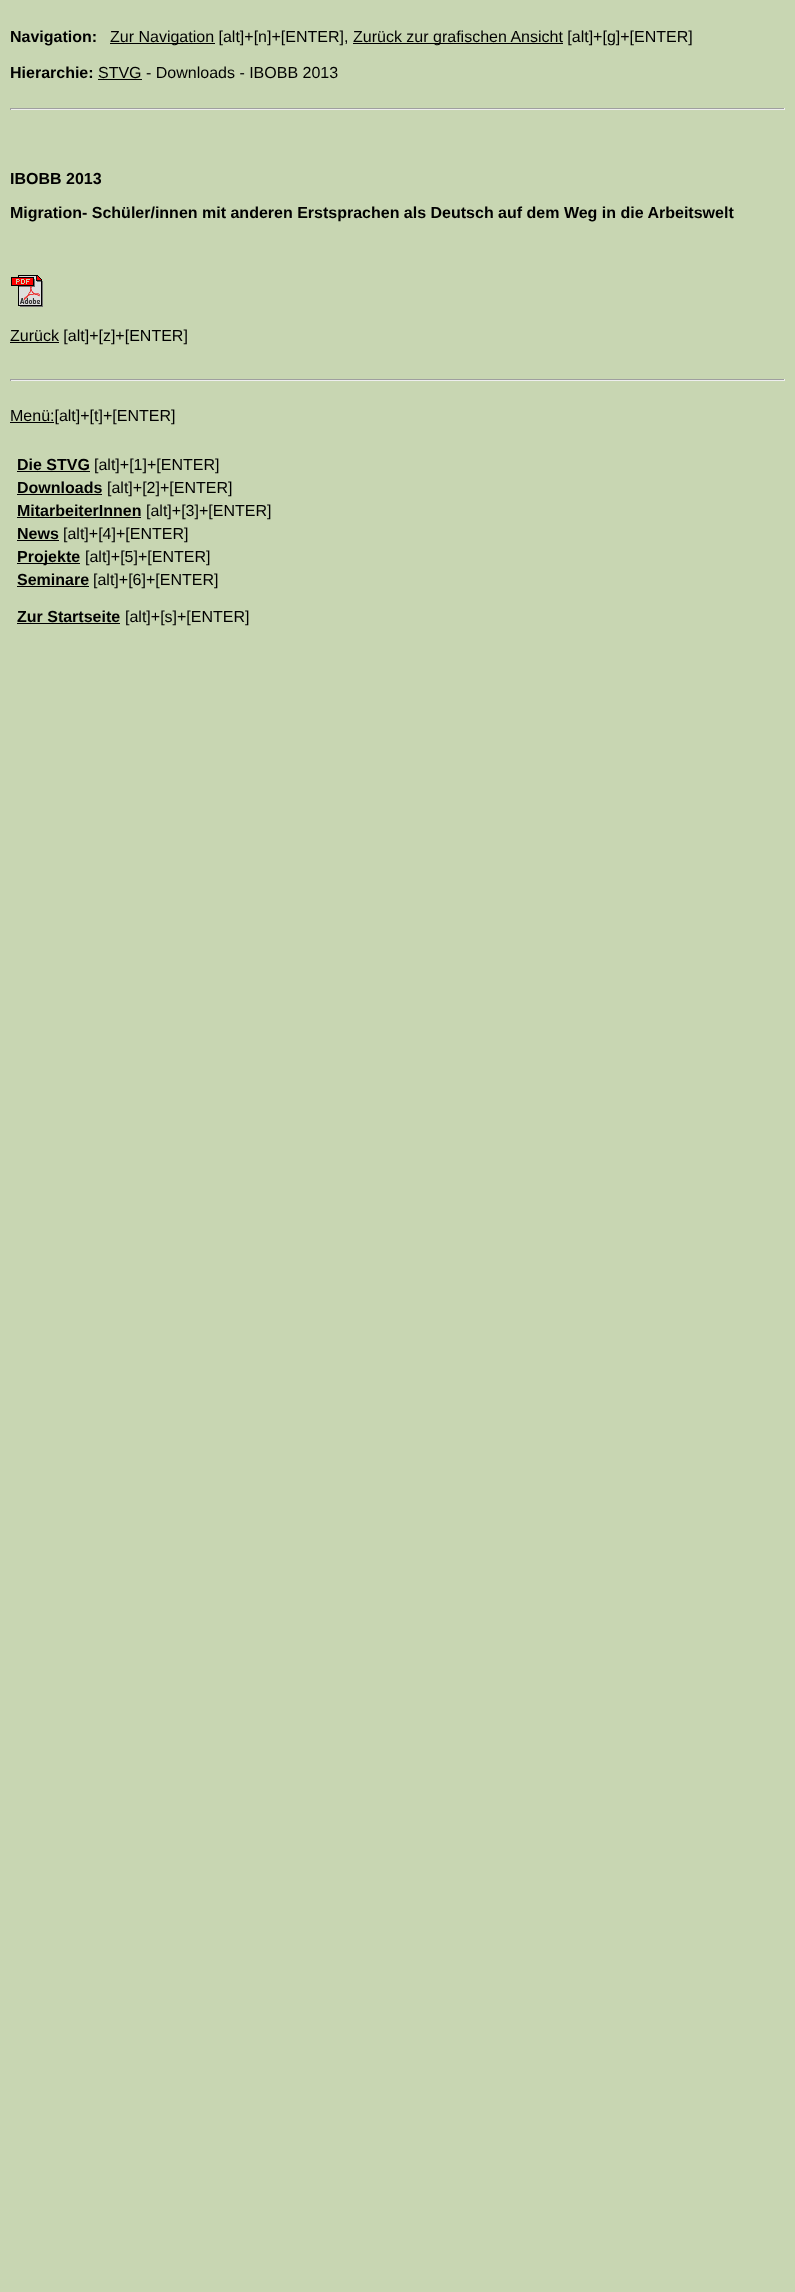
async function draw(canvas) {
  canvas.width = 795
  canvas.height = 2292
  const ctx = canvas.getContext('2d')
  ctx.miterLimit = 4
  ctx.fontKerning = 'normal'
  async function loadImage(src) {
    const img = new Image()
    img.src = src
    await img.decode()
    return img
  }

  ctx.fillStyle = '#c8d6b2'
  ctx.fillRect(0, 0, 795, 2292)
  ctx.font = 'bold 16px Liberation Sans'
  ctx.fillStyle = '#000'
  ctx.fillText('Navigation:', 10, 42)
  ctx.fillRect(110, 43, 105, 1)
  ctx.font = '16px Liberation Sans'
  ctx.fillText('Zur Navigation [alt]+[n]+[ENTER],', 110, 42)
  ctx.fillRect(353, 43, 210, 1)
  ctx.fillText('Zurück zur grafischen Ansicht [alt]+[g]+[ENTER]', 353, 42)
  ctx.font = 'bold 16px Liberation Sans'
  ctx.fillText('Hierarchie:', 10, 78)
  ctx.font = '16px Liberation Sans'
  ctx.fillText('STVG - Downloads - IBOBB 2013', 98, 78)
  ctx.fillRect(98, 79, 44, 1)
  ctx.fillStyle = '#9f9f9f'
  ctx.fillRect(10, 108, 775, 1)
  ctx.fillStyle = '#eee'
  ctx.fillRect(784, 108, 1, 2)
  ctx.fillRect(10, 109, 775, 1)
  ctx.fillStyle = '#9f9f9f'
  ctx.fillRect(10, 108, 1, 2)
  ctx.font = 'bold 16px Liberation Sans'
  ctx.fillStyle = '#000'
  ctx.fillText('IBOBB 2013', 10, 184)
  ctx.fillText('Migration- Schüler/innen mit anderen Erstsprachen als Deutsch auf dem Weg in die Arbeitswelt', 10, 218)
  ctx.drawImage(await loadImage('image0.png'), 11, 275, 32, 32)
  ctx.fillRect(10, 342, 49, 1)
  ctx.font = '16px Liberation Sans'
  ctx.fillText('Zurück [alt]+[z]+[ENTER]', 10, 341)
  ctx.fillStyle = '#9f9f9f'
  ctx.fillRect(10, 379, 775, 1)
  ctx.fillStyle = '#eee'
  ctx.fillRect(784, 379, 1, 2)
  ctx.fillRect(10, 380, 775, 1)
  ctx.fillStyle = '#9f9f9f'
  ctx.fillRect(10, 379, 1, 2)
  ctx.fillStyle = '#000'
  ctx.fillRect(10, 422, 44, 1)
  ctx.fillText('Menü:[alt]+[t]+[ENTER]', 10, 421)
  ctx.font = 'bold 16px Liberation Sans'
  ctx.fillText('Die STVG', 17, 470)
  ctx.fillRect(17, 471, 73, 1)
  ctx.font = '16px Liberation Sans'
  ctx.fillText('[alt]+[1]+[ENTER]', 94, 470)
  ctx.font = 'bold 16px Liberation Sans'
  ctx.fillText('Downloads', 17, 493)
  ctx.fillRect(17, 494, 85, 1)
  ctx.font = '16px Liberation Sans'
  ctx.fillText('[alt]+[2]+[ENTER]', 107, 493)
  ctx.font = 'bold 16px Liberation Sans'
  ctx.fillText('MitarbeiterInnen', 17, 516)
  ctx.fillRect(17, 517, 124, 1)
  ctx.font = '16px Liberation Sans'
  ctx.fillText('[alt]+[3]+[ENTER]', 146, 516)
  ctx.font = 'bold 16px Liberation Sans'
  ctx.fillText('News', 17, 539)
  ctx.fillRect(17, 540, 42, 1)
  ctx.font = '16px Liberation Sans'
  ctx.fillText('[alt]+[4]+[ENTER]', 63, 539)
  ctx.fillRect(17, 563, 63, 1)
  ctx.font = 'bold 16px Liberation Sans'
  ctx.fillText('Projekte', 17, 562)
  ctx.font = '16px Liberation Sans'
  ctx.fillText('[alt]+[5]+[ENTER]', 85, 562)
  ctx.font = 'bold 16px Liberation Sans'
  ctx.fillText('Seminare', 17, 585)
  ctx.fillRect(17, 586, 72, 1)
  ctx.font = '16px Liberation Sans'
  ctx.fillText('[alt]+[6]+[ENTER]', 93, 585)
  ctx.font = 'bold 16px Liberation Sans'
  ctx.fillText('Zur Startseite', 17, 622)
  ctx.fillRect(17, 623, 103, 1)
  ctx.font = '16px Liberation Sans'
  ctx.fillText('[alt]+[s]+[ENTER]', 125, 622)
}

draw(document.querySelector('canvas'))
